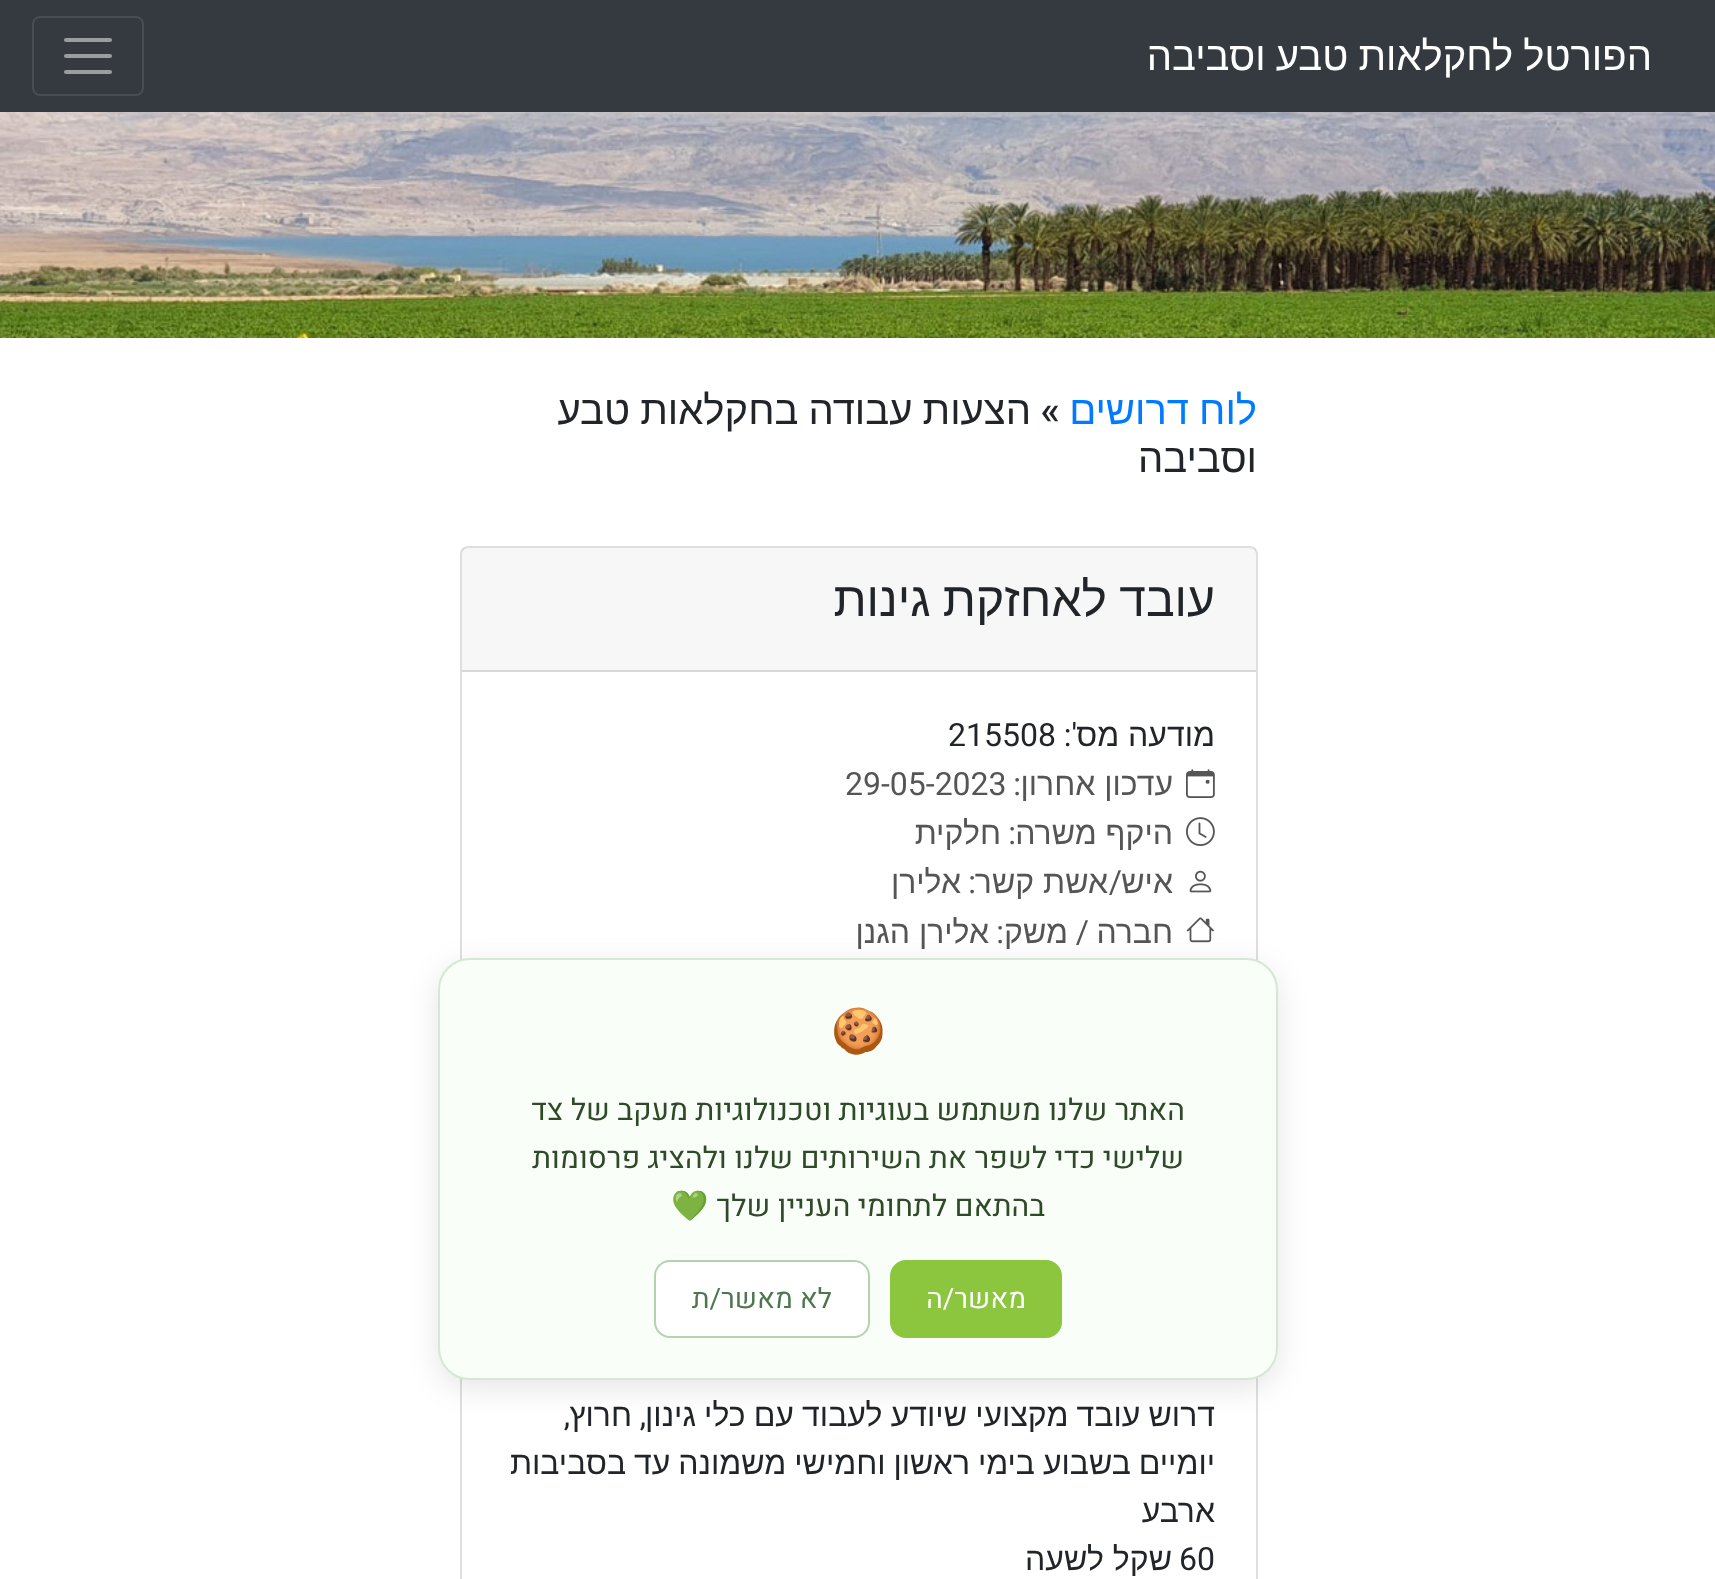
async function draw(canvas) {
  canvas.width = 1715
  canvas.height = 1579
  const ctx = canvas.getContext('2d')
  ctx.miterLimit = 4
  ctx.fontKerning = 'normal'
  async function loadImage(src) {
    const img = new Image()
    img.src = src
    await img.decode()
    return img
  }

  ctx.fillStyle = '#fff'
  ctx.fillRect(0, 0, 1715, 1579)
  ctx.fillStyle = '#343a40'
  ctx.fillRect(0, 0, 1715, 112)
  ctx.wordSpacing = '-1px'
  ctx.direction = 'rtl'
  ctx.font = '40px Liberation Sans'
  ctx.fillStyle = '#fff'
  ctx.fillText('הפורטל לחקלאות טבע וסביבה', 1652, 70)
  ctx.beginPath()
  ctx.roundRect(33, 17, 110, 78, 7)
  ctx.strokeStyle = '#484e53'
  ctx.lineWidth = 2
  ctx.stroke()
  ctx.beginPath()
  ctx.moveTo(66, 40)
  ctx.lineTo(110, 40)
  ctx.moveTo(66, 56)
  ctx.lineTo(110, 56)
  ctx.moveTo(66, 72)
  ctx.lineTo(110, 72)
  ctx.strokeStyle = '#9a9da0'
  ctx.lineWidth = 4
  ctx.lineCap = 'round'
  ctx.stroke()
  ctx.drawImage(await loadImage('image0.png'), 0, 112, 1715, 226)
  ctx.fillStyle = '#007bff'
  ctx.fillText('לוח דרושים', 1257, 424)
  ctx.wordSpacing = '0px'
  ctx.font = '500 40px Roboto'
  ctx.fillStyle = '#212529'
  ctx.fillText('»', 1060, 424)
  ctx.wordSpacing = '-1px'
  ctx.font = '40px Liberation Sans'
  ctx.fillText('הצעות עבודה בחקלאות טבע', 1031, 424)
  ctx.wordSpacing = '0px'
  ctx.fillText('וסביבה', 1257, 472)
  ctx.beginPath()
  ctx.roundRect(461, 547, 796, 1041, 7)
  ctx.strokeStyle = '#dfdfdf'
  ctx.lineWidth = 2
  ctx.stroke()
  ctx.fillStyle = '#00000008'
  ctx.fillRect(462, 548, 794, 122)
  ctx.fillStyle = '#d8d8d8'
  ctx.fillRect(462, 670, 794, 2)
  ctx.wordSpacing = '-1px'
  ctx.font = '48px Liberation Sans'
  ctx.fillStyle = '#212529'
  ctx.fillText('עובד לאחזקת גינות', 1215, 616)
  ctx.wordSpacing = '0px'
  ctx.font = '32px Liberation Sans'
  ctx.fillText('מודעה מס', 1215, 746)
  ctx.font = '32px Roboto'
  ctx.fillText('\':', 1077, 746)
  ctx.direction = 'ltr'
  ctx.fillText('215508', 948, 746)
  ctx.drawImage(await loadImage('image1.png'), 1186, 769, 29, 29)
  ctx.direction = 'rtl'
  ctx.font = '32px Liberation Sans'
  ctx.fillStyle = '#555'
  ctx.fillText('עדכון אחרון', 1173, 795)
  ctx.font = '32px Roboto'
  ctx.fillText(':', 1021, 795)
  ctx.direction = 'ltr'
  ctx.fillText('29-05-2023', 845, 795)
  ctx.drawImage(await loadImage('image2.png'), 1186, 817, 29, 29)
  ctx.direction = 'rtl'
  ctx.font = '32px Liberation Sans'
  ctx.fillText('היקף משרה', 1173, 844)
  ctx.font = '32px Roboto'
  ctx.fillText(':', 1016, 844)
  ctx.font = '32px Liberation Sans'
  ctx.fillText('חלקית', 1001, 844)
  ctx.drawImage(await loadImage('image3.png'), 1189, 870, 23, 23)
  ctx.fillText('איש', 1173, 893)
  ctx.fillText('אשת קשר', 1108, 893)
  ctx.font = '32px Roboto'
  ctx.fillText('/', 1122, 893)
  ctx.fillText(':', 976, 893)
  ctx.font = '32px Liberation Sans'
  ctx.fillText('אלירן', 961, 893)
  ctx.drawImage(await loadImage('image4.png'), 1186, 917, 28, 26)
  ctx.fillText('חברה', 1173, 943)
  ctx.font = '32px Roboto'
  ctx.fillText('/', 1089, 943)
  ctx.font = '32px Liberation Sans'
  ctx.fillText('משק', 1068, 943)
  ctx.font = '32px Roboto'
  ctx.fillText(':', 1004, 943)
  ctx.font = '32px Liberation Sans'
  ctx.fillText('אלירן הגנן', 989, 943)
  ctx.wordSpacing = '-0.75px'
  ctx.fillStyle = '#212529'
  ctx.fillText('דרוש עובד מקצועי שיודע לעבוד עם כלי גינון', 1215, 1426)
  ctx.wordSpacing = '0px'
  ctx.font = '32px Roboto'
  ctx.fillText(',', 646, 1426)
  ctx.font = '32px Liberation Sans'
  ctx.fillText('חרוץ', 632, 1426)
  ctx.font = '32px Roboto'
  ctx.fillText(',', 570, 1426)
  ctx.wordSpacing = '-1px'
  ctx.font = '32px Liberation Sans'
  ctx.fillText('יומיים בשבוע בימי ראשון וחמישי משמונה עד בסביבות', 1215, 1474)
  ctx.wordSpacing = '0px'
  ctx.fillText('ארבע', 1215, 1522)
  ctx.direction = 'ltr'
  ctx.font = '32px Roboto'
  ctx.fillText('60', 1179, 1570)
  ctx.direction = 'rtl'
  ctx.font = '32px Liberation Sans'
  ctx.fillText('שקל לשעה', 1172, 1570)
  ctx.fillStyle = '#0000001a'
  ctx.filter = 'blur(15px)'
  ctx.beginPath()
  ctx.roundRect(438, 966, 840, 422, 32)
  ctx.fill()
  ctx.filter = 'none'
  ctx.fillStyle = '#f9fff8'
  ctx.beginPath()
  ctx.roundRect(439, 959, 838, 420, 31)
  ctx.fill()
  ctx.strokeStyle = '#d5e8d4'
  ctx.stroke()
  ctx.direction = 'ltr'
  ctx.font = '44px Noto Color Emoji'
  ctx.fillStyle = '#2e4a28'
  ctx.fillText('🍪', 831, 1046)
  ctx.direction = 'rtl'
  ctx.font = '30px Heebo'
  ctx.fillText('האתר שלנו משתמש בעוגיות וטכנולוגיות מעקב של צד', 1185, 1120)
  ctx.fillText('שלישי כדי לשפר את השירותים שלנו ולהציג פרסומות', 1184, 1168)
  ctx.fillText('בהתאם לתחומי העניין שלך', 1045, 1216)
  ctx.font = '30px Noto Color Emoji'
  ctx.fillText('💚', 709, 1216)
  ctx.fillStyle = '#8cc63f'
  ctx.beginPath()
  ctx.roundRect(890, 1260, 172, 78, 16)
  ctx.fill()
  ctx.font = '28px Heebo'
  ctx.fillStyle = '#fff'
  ctx.fillText('מאשר/ה', 1026, 1308)
  ctx.beginPath()
  ctx.roundRect(655, 1261, 214, 76, 15)
  ctx.fill()
  ctx.strokeStyle = '#b2d3ad'
  ctx.stroke()
  ctx.fillStyle = '#4d774e'
  ctx.fillText('לא מאשר/ת', 832, 1308)
}

draw(document.querySelector('canvas'))
